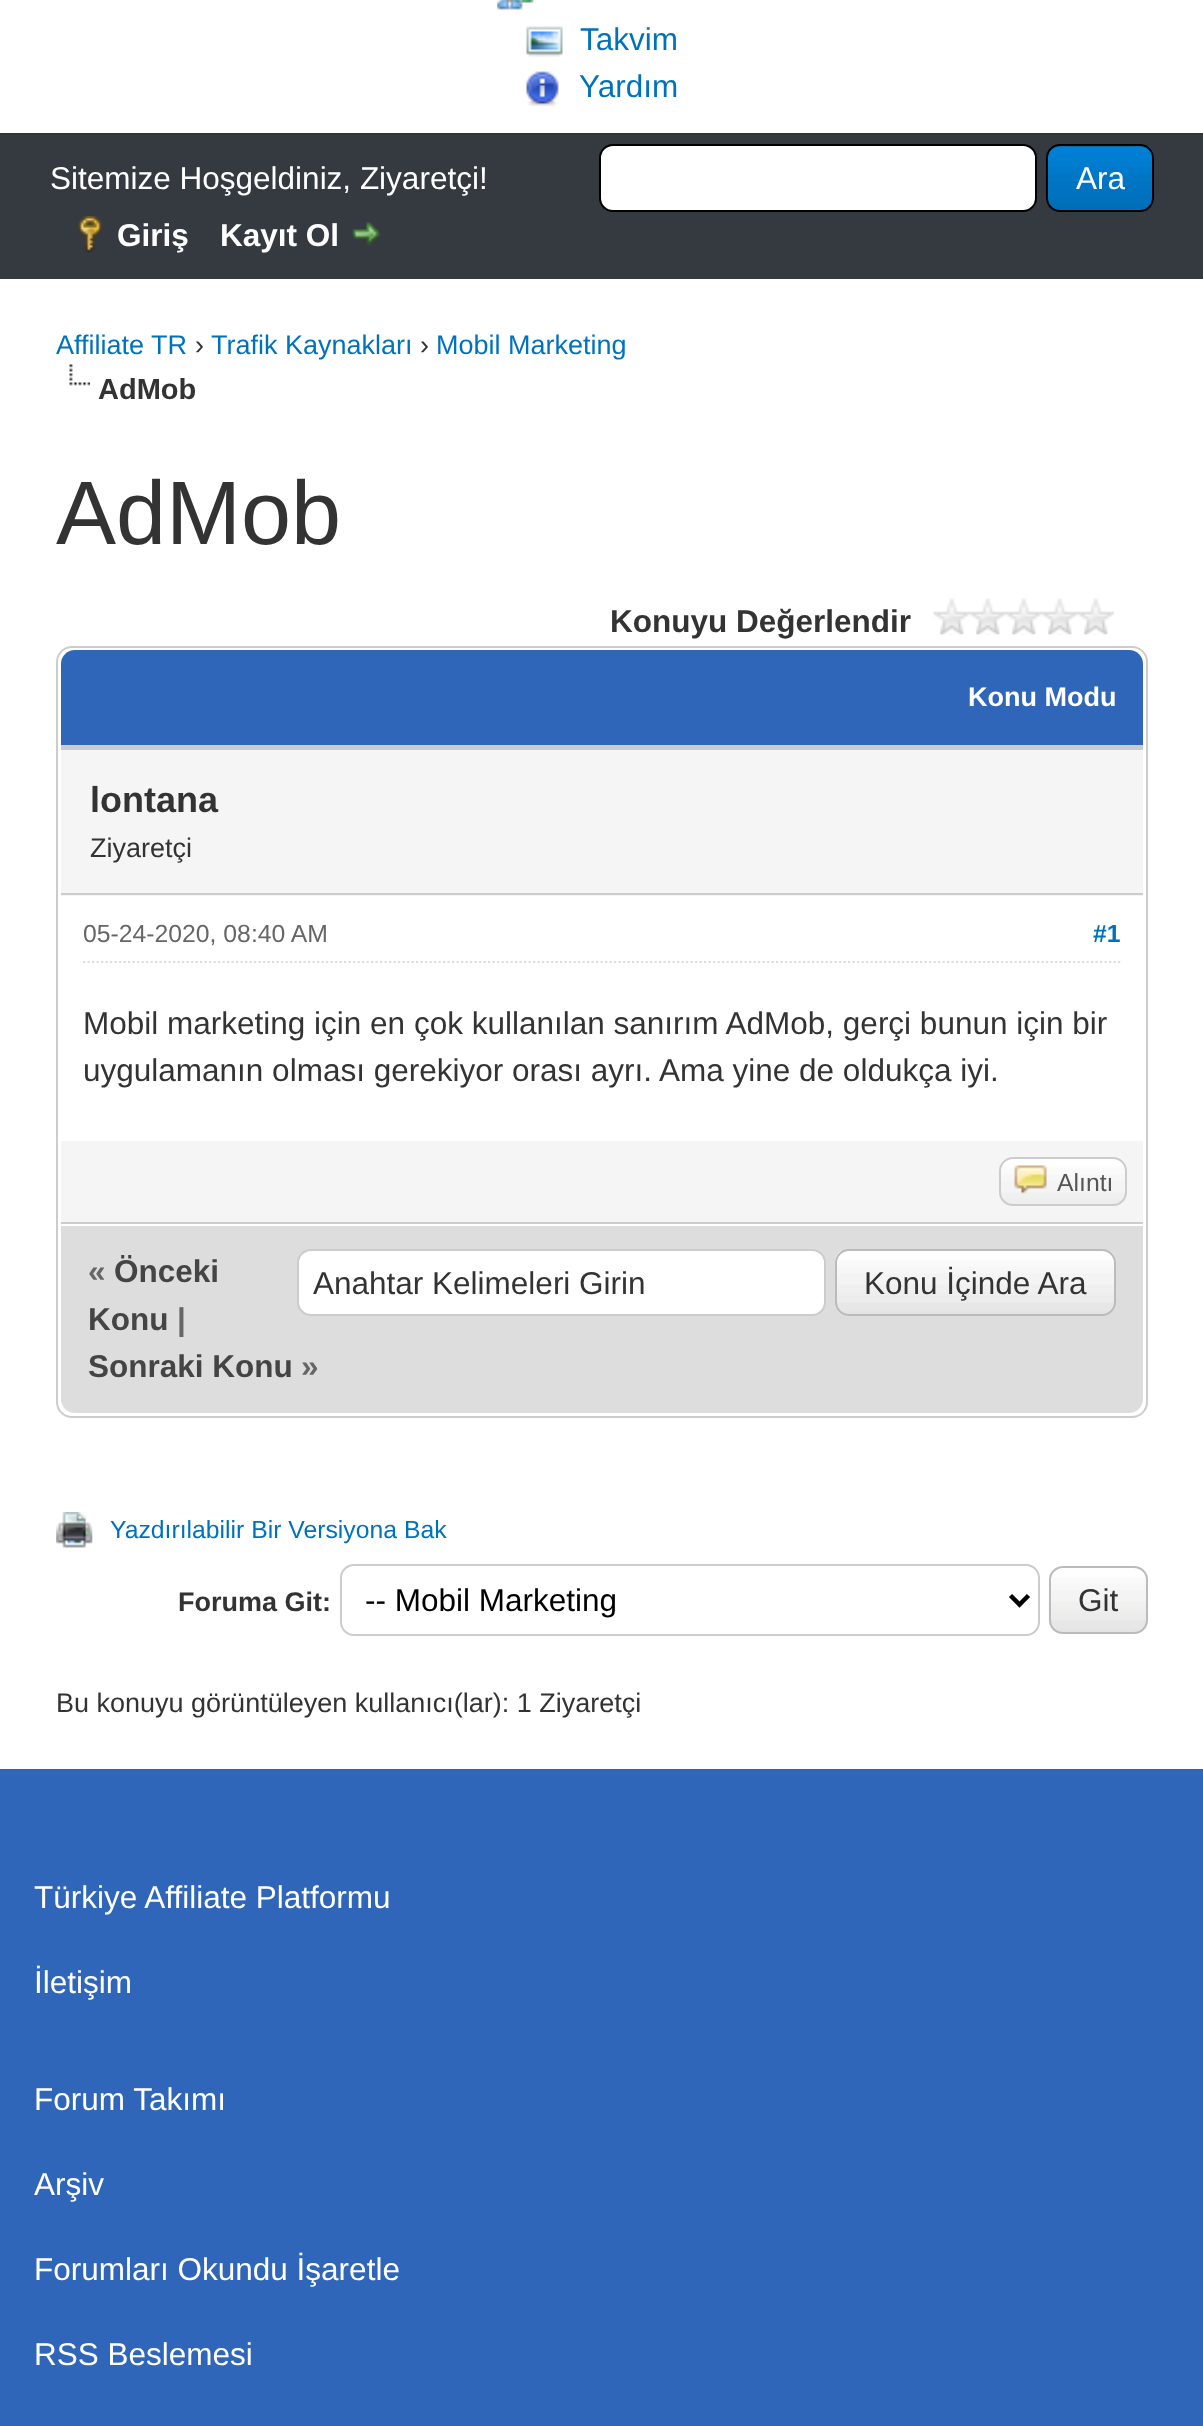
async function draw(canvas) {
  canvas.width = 1203
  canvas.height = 2426
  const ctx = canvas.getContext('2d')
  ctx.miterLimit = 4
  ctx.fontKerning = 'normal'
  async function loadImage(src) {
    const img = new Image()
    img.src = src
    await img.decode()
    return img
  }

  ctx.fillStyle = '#fff'
  ctx.fillRect(0, 0, 1203, 2426)
  ctx.fillStyle = '#263c30'
  ctx.fillRect(0, 133, 1203, 2)
  ctx.drawImage(await loadImage('image0.png'), 497, 0, 37, 10)
  ctx.drawImage(await loadImage('image1.png'), 526, 26, 37, 31)
  ctx.font = '31.5px Liberation Sans'
  ctx.fillStyle = '#0072bc'
  ctx.fillText('Takvim', 580, 50)
  ctx.drawImage(await loadImage('image2.png'), 526, 71, 33, 35)
  ctx.fillText('Yardım', 579, 97)
  ctx.fillStyle = '#343a40'
  ctx.fillRect(0, 135, 1203, 144)
  ctx.fillStyle = '#fff'
  ctx.fillText('Sitemize Hoşgeldiniz, Ziyaretçi!', 50, 189)
  ctx.beginPath()
  ctx.roundRect(600, 145, 436, 66, 13)
  ctx.fill()
  ctx.strokeStyle = '#000'
  ctx.lineWidth = 2
  ctx.stroke()
  ctx.drawImage(await loadImage('image3.png'), 1046, 146, 109, 66)
  ctx.beginPath()
  ctx.roundRect(1047, 145, 106, 66, 13)
  ctx.stroke()
  ctx.fillText('Ara', 1076, 189)
  ctx.drawImage(await loadImage('image4.png'), 78, 216, 24, 36)
  ctx.font = 'bold 31.5px Liberation Sans'
  ctx.fillText('Giriş', 117, 246)
  ctx.fillText('Kayıt Ol', 220, 246)
  ctx.drawImage(await loadImage('image5.png'), 352, 222, 29, 24)
  ctx.font = '27px Liberation Sans'
  ctx.fillStyle = '#0072bc'
  ctx.fillText('Affiliate TR', 56, 354)
  ctx.fillStyle = '#333'
  ctx.fillText('›', 195, 354)
  ctx.fillStyle = '#0072bc'
  ctx.fillText('Trafik Kaynakları', 211, 354)
  ctx.fillStyle = '#333'
  ctx.fillText('›', 420, 354)
  ctx.fillStyle = '#0072bc'
  ctx.fillText('Mobil Marketing', 436, 354)
  ctx.drawImage(await loadImage('image6.png'), 69, 364, 21, 22)
  ctx.font = 'bold 29px Liberation Sans'
  ctx.fillStyle = '#333'
  ctx.fillText('AdMob', 98, 399)
  ctx.font = '90px Liberation Sans'
  ctx.fillText('AdMob', 56, 544)
  ctx.font = 'bold 31.5px Liberation Sans'
  ctx.fillText('Konuyu Değerlendir', 610, 632)
  ctx.drawImage(await loadImage('image7.png'), 933, 598, 181, 37)
  ctx.beginPath()
  ctx.roundRect(57, 647, 1090, 770, 15)
  ctx.strokeStyle = '#ccc'
  ctx.stroke()
  ctx.fillStyle = '#2f66b9'
  ctx.beginPath()
  ctx.roundRect(61, 650, 1082, 95, [14, 14, 0, 0])
  ctx.fill()
  ctx.font = 'bold 27px Liberation Sans'
  ctx.fillStyle = '#fff'
  ctx.fillText('Konu Modu', 968, 706)
  ctx.fillStyle = '#f5f5f5'
  ctx.fillRect(61, 750, 1082, 146)
  ctx.fillStyle = '#ccc'
  ctx.fillRect(61, 745, 1082, 5)
  ctx.fillRect(61, 893, 1082, 2)
  ctx.font = 'bold 36px Liberation Sans'
  ctx.fillStyle = '#333'
  ctx.fillText('lontana', 90, 812)
  ctx.font = '27px Liberation Sans'
  ctx.fillText('Ziyaretçi', 90, 857)
  ctx.beginPath()
  ctx.moveTo(83, 962)
  ctx.lineTo(1120.5, 962)
  ctx.strokeStyle = '#ddd'
  ctx.lineWidth = 2.2
  ctx.setLineDash([2.25, 2.25])
  ctx.stroke()
  ctx.font = '24.75px Liberation Sans'
  ctx.fillStyle = '#666'
  ctx.fillText('05-24-2020, 08:40 AM', 83, 942)
  ctx.font = 'bold 24.75px Liberation Sans'
  ctx.fillStyle = '#0072bc'
  ctx.fillText('#1', 1093, 942)
  ctx.font = '31.5px Liberation Sans'
  ctx.fillStyle = '#333'
  ctx.fillText('Mobil marketing için en çok kullanılan sanırım AdMob, gerçi bunun için bir', 83, 1034)
  ctx.fillText('uygulamanın olması gerekiyor orası ayrı. Ama yine de oldukça iyi.', 83, 1081)
  ctx.fillStyle = '#f5f5f5'
  ctx.fillRect(61, 1141, 1082, 81)
  ctx.fillStyle = '#ccc'
  ctx.fillRect(61, 1222, 1082, 2)
  ctx.drawImage(await loadImage('image8.png'), 999, 1158, 128, 48)
  ctx.beginPath()
  ctx.roundRect(1000, 1158, 126, 47, 13)
  ctx.strokeStyle = '#ccc'
  ctx.lineWidth = 2
  ctx.setLineDash([])
  ctx.stroke()
  ctx.drawImage(await loadImage('image9.png'), 1014, 1165, 33, 29)
  ctx.font = '24.75px Liberation Sans'
  ctx.fillStyle = '#555'
  ctx.fillText('Alıntı', 1057, 1191)
  ctx.fillStyle = '#ddd'
  ctx.beginPath()
  ctx.roundRect(61, 1224, 1082, 189, [0, 0, 14, 14])
  ctx.fill()
  ctx.fillStyle = '#fff'
  ctx.fillRect(61, 1224, 1082, 2)
  ctx.font = 'bold 31.5px Liberation Sans'
  ctx.fillStyle = '#666'
  ctx.fillText('«', 88, 1282)
  ctx.fillStyle = '#444'
  ctx.fillText('Önceki', 114, 1282)
  ctx.fillText('Konu', 88, 1330)
  ctx.fillStyle = '#666'
  ctx.fillText('|', 177, 1330)
  ctx.fillStyle = '#444'
  ctx.fillText('Sonraki Konu', 88, 1377)
  ctx.fillStyle = '#666'
  ctx.fillText('»', 301, 1377)
  ctx.fillStyle = '#fff'
  ctx.beginPath()
  ctx.roundRect(298, 1250, 527, 65, 13)
  ctx.fill()
  ctx.stroke()
  ctx.font = '31.5px Liberation Sans'
  ctx.fillStyle = '#333'
  ctx.fillText('Anahtar Kelimeleri Girin', 313, 1294)
  ctx.drawImage(await loadImage('image10.png'), 835, 1251, 281, 65)
  ctx.beginPath()
  ctx.roundRect(836, 1250, 279, 65, 13)
  ctx.strokeStyle = '#bbb'
  ctx.stroke()
  ctx.fillText('Konu İçinde Ara', 864, 1294)
  ctx.drawImage(await loadImage('image11.png'), 56, 1512, 37, 36)
  ctx.font = '24.75px Liberation Sans'
  ctx.fillStyle = '#0072bc'
  ctx.fillText('Yazdırılabilir Bir Versiyona Bak', 110, 1538)
  ctx.font = 'bold 27px Liberation Sans'
  ctx.fillStyle = '#333'
  ctx.fillText('Foruma Git:', 178, 1611)
  ctx.beginPath()
  ctx.roundRect(341, 1565, 698, 70, 13)
  ctx.strokeStyle = '#ccc'
  ctx.stroke()
  ctx.beginPath()
  ctx.moveTo(1010.5, 1595.5)
  ctx.lineTo(1019.5, 1604.5)
  ctx.lineTo(1028.5, 1595.5)
  ctx.strokeStyle = '#000'
  ctx.lineWidth = 4.5
  ctx.stroke()
  ctx.font = '31.5px Liberation Sans'
  ctx.fillStyle = '#000'
  ctx.fillText('-- Mobil Marketing', 365, 1611)
  ctx.drawImage(await loadImage('image12.png'), 1048, 1568, 99, 65)
  ctx.beginPath()
  ctx.roundRect(1050, 1567, 97, 66, 13)
  ctx.strokeStyle = '#bbb'
  ctx.lineWidth = 2
  ctx.stroke()
  ctx.fillStyle = '#333'
  ctx.fillText('Git', 1078, 1611)
  ctx.font = '27px Liberation Sans'
  ctx.fillText('Bu konuyu görüntüleyen kullanıcı(lar): 1 Ziyaretçi', 56, 1712)
  ctx.fillStyle = '#2f66b9'
  ctx.fillRect(0, 1769, 1203, 657)
  ctx.font = '31.5px Liberation Sans'
  ctx.fillStyle = '#fff'
  ctx.fillText('Türkiye Affiliate Platformu', 34, 1908)
  ctx.fillText('İletişim', 34, 1993)
  ctx.fillText('Forum Takımı', 34, 2110)
  ctx.fillText('Arşiv', 34, 2195)
  ctx.fillText('Forumları Okundu İşaretle', 34, 2280)
  ctx.fillText('RSS Beslemesi', 34, 2365)
}

draw(document.querySelector('canvas'))
